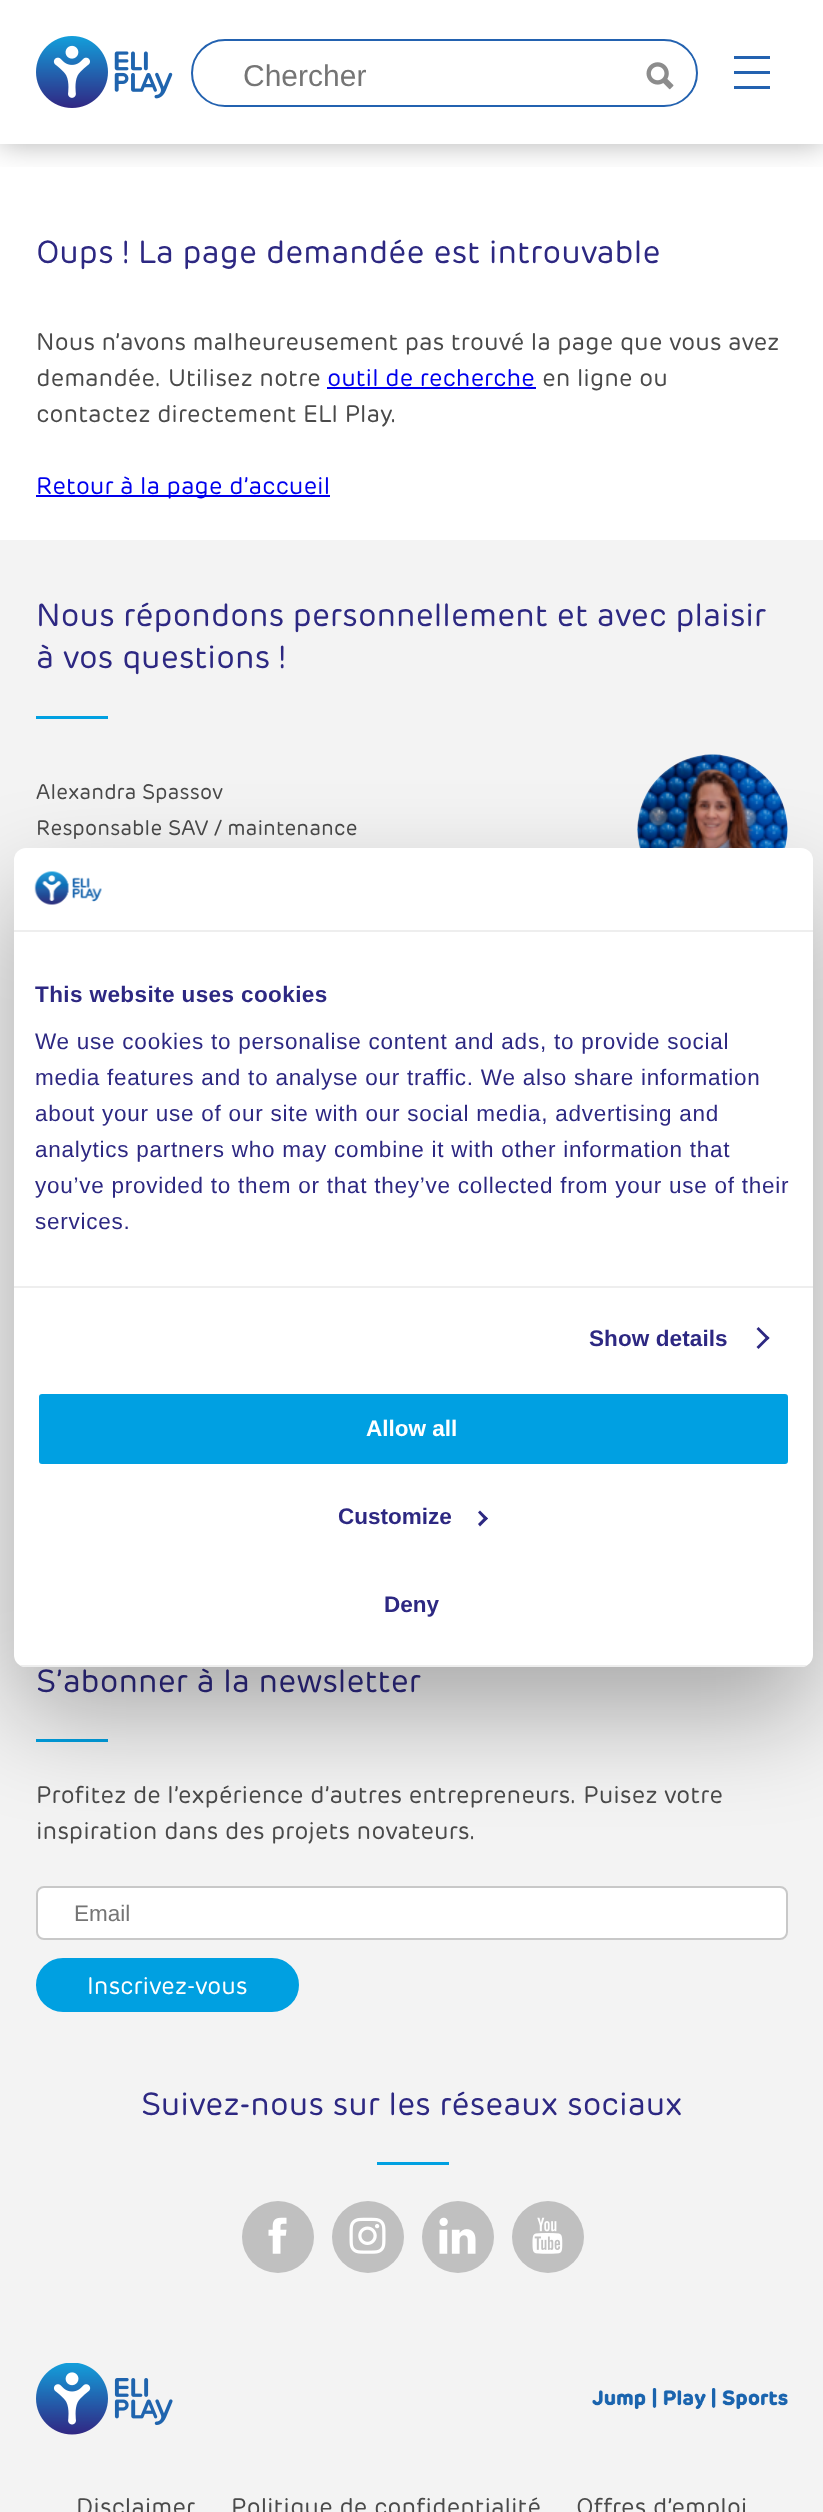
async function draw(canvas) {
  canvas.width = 823
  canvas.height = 2512
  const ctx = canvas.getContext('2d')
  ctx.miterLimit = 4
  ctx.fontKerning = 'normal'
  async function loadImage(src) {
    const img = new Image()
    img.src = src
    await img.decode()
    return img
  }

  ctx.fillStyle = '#fff'
  ctx.fillRect(0, 0, 823, 2512)
  ctx.save()
  ctx.beginPath()
  ctx.rect(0, 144, 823, 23)
  ctx.clip()
  ctx.fillStyle = '#0000004d'
  ctx.filter = 'blur(15px)'
  ctx.beginPath()
  ctx.rect(0, 0, 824, 144)
  ctx.fill()
  ctx.filter = 'none'
  ctx.restore()
  ctx.drawImage(await loadImage('image0.png'), 36, 36, 137, 72)
  ctx.beginPath()
  ctx.roundRect(192, 40, 505, 66, 33)
  ctx.strokeStyle = '#2362b0'
  ctx.lineWidth = 2
  ctx.stroke()
  ctx.font = '30px Liberation Sans'
  ctx.fillStyle = '#757575'
  ctx.fillText('Chercher', 243, 86)
  ctx.save()
  ctx.beginPath()
  ctx.roundRect(192, 41, 504, 64, 32)
  ctx.clip()
  ctx.fillStyle = '#fff'
  ctx.fillRect(642, 56, 51, 34)
  ctx.restore()
  ctx.drawImage(await loadImage('image1.png'), 646, 62, 28, 28)
  ctx.fillStyle = '#2362b0'
  ctx.fillRect(734, 56, 36, 3)
  ctx.fillRect(734, 71, 36, 3)
  ctx.fillRect(734, 86, 36, 3)
  ctx.font = '32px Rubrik'
  ctx.fillStyle = '#2d2882'
  ctx.fillText('Oups ! La page demandée est introuvable', 36, 263)
  ctx.font = '24px Rubrik'
  ctx.fillStyle = '#4a4a4a'
  ctx.fillText('Nous n’avons malheureusement pas trouvé la page que vous avez', 36, 350)
  ctx.fillText('demandée. Utilisez notre', 36, 386)
  ctx.fillStyle = '#00e'
  ctx.fillText('outil de recherche', 327, 386)
  ctx.fillRect(327, 387, 209, 2)
  ctx.fillStyle = '#4a4a4a'
  ctx.fillText('en ligne ou', 542, 386)
  ctx.fillText('contactez directement ELI Play.', 36, 422)
  ctx.fillStyle = '#00e'
  ctx.fillRect(36, 495, 294, 2)
  ctx.fillText('Retour à la page d’accueil', 36, 494)
  ctx.fillStyle = '#f3f3f3'
  ctx.fillRect(0, 540, 823, 1972)
  ctx.font = '32px Rubrik'
  ctx.fillStyle = '#2d2882'
  ctx.fillText('Nous répondons personnellement et avec plaisir', 36, 626)
  ctx.fillText('à vos questions !', 36, 668)
  ctx.fillStyle = '#00a0e1'
  ctx.fillRect(36, 716, 72, 3)
  ctx.font = '21px Rubrik'
  ctx.fillStyle = '#4a4a4a'
  ctx.fillText('Alexandra Spassov', 36, 799)
  ctx.fillText('Responsable SAV / maintenance', 36, 835)
  ctx.fillStyle = '#fff'
  ctx.beginPath()
  ctx.arc(713, 830, 75, 0, 2 * Math.PI)
  ctx.fill()
  ctx.drawImage(await loadImage('image2.png'), 637, 754, 151, 94)
  ctx.font = '32px Rubrik'
  ctx.fillStyle = '#2d2882'
  ctx.fillText('S’abonner à la newsletter', 36, 1692)
  ctx.fillStyle = '#00a0e1'
  ctx.fillRect(36, 1739, 72, 3)
  ctx.font = '24px Rubrik'
  ctx.fillStyle = '#4a4a4a'
  ctx.fillText('Profitez de l’expérience d’autres entrepreneurs. Puisez votre', 36, 1803)
  ctx.fillText('inspiration dans des projets novateurs.', 36, 1839)
  ctx.fillStyle = '#fff'
  ctx.beginPath()
  ctx.roundRect(37, 1887, 750, 52, 7)
  ctx.fill()
  ctx.strokeStyle = '#c8c8c8'
  ctx.stroke()
  ctx.font = '22.5px Liberation Sans'
  ctx.fillStyle = '#757575'
  ctx.fillText('Email', 74, 1921)
  ctx.fillStyle = '#00a0e1'
  ctx.beginPath()
  ctx.roundRect(37, 1959, 261, 52, 26)
  ctx.fill()
  ctx.strokeStyle = '#00a0e1'
  ctx.stroke()
  ctx.font = '24px Rubrik'
  ctx.fillStyle = '#fff'
  ctx.fillText('Inscrivez-vous', 87, 1994)
  ctx.font = '32px Rubrik'
  ctx.fillStyle = '#2d2882'
  ctx.fillText('Suivez-nous sur les réseaux sociaux', 141, 2115)
  ctx.fillStyle = '#00a0e1'
  ctx.fillRect(377, 2162, 72, 3)
  ctx.fillStyle = '#c0c0c0'
  ctx.beginPath()
  ctx.arc(278, 2237, 36, 0, 2 * Math.PI)
  ctx.fill()
  ctx.drawImage(await loadImage('image3.png'), 268, 2217, 19, 37)
  ctx.beginPath()
  ctx.arc(368, 2237, 36, 0, 2 * Math.PI)
  ctx.fill()
  ctx.drawImage(await loadImage('image4.png'), 349, 2217, 37, 37)
  ctx.beginPath()
  ctx.arc(458, 2237, 36, 0, 2 * Math.PI)
  ctx.fill()
  ctx.drawImage(await loadImage('image5.png'), 439, 2217, 37, 37)
  ctx.beginPath()
  ctx.arc(548, 2237, 36, 0, 2 * Math.PI)
  ctx.fill()
  ctx.drawImage(await loadImage('image6.png'), 532, 2217, 31, 37)
  ctx.drawImage(await loadImage('image7.png'), 36, 2363, 137, 72)
  ctx.drawImage(await loadImage('image8.png'), 592, 2388, 196, 21)
  ctx.font = '24px Rubrik'
  ctx.fillStyle = '#4a4a4a'
  ctx.fillText('Disclaimer', 76, 2515)
  ctx.fillText('Politique de confidentialité', 231, 2515)
  ctx.fillText('Offres d’emploi', 576, 2515)
  ctx.fillStyle = '#0000004d'
  ctx.filter = 'blur(51px)'
  ctx.beginPath()
  ctx.roundRect(14, 896, 799, 819, 12)
  ctx.fill()
  ctx.filter = 'none'
  ctx.fillStyle = '#fff'
  ctx.beginPath()
  ctx.roundRect(14, 848, 799, 819, 12)
  ctx.fill()
  ctx.fillStyle = '#eee'
  ctx.fillRect(14, 930, 799, 2)
  ctx.drawImage(await loadImage('image9.png'), 34, 871, 68, 34)
  ctx.fillRect(14, 1286, 799, 2)
  ctx.letterSpacing = '0.4px'
  ctx.font = 'bold 22.5px Liberation Sans'
  ctx.fillStyle = '#2d2882'
  ctx.fillText('This website uses cookies', 35, 1002)
  ctx.letterSpacing = '0.75px'
  ctx.font = '22.5px Liberation Sans'
  ctx.fillText('We use cookies to personalise content and ads, to provide social', 35, 1049)
  ctx.fillText('media features and to analyse our traffic. We also share information', 35, 1085)
  ctx.fillText('about your use of our site with our social media, advertising and', 35, 1121)
  ctx.fillText('analytics partners who may combine it with other information that', 35, 1157)
  ctx.fillText('you’ve provided to them or that they’ve collected from your use of their', 35, 1193)
  ctx.fillText('services.', 35, 1229)
  ctx.letterSpacing = '0.1px'
  ctx.font = 'bold 22.5px Liberation Sans'
  ctx.fillText('Show details', 589, 1346)
  ctx.beginPath()
  ctx.moveTo(758.5, 1327)
  ctx.lineTo(769.5, 1338)
  ctx.lineTo(767.5, 1340)
  ctx.lineTo(756.5, 1329)
  ctx.closePath()
  ctx.fill()
  ctx.beginPath()
  ctx.moveTo(767.5, 1336)
  ctx.lineTo(769.5, 1338)
  ctx.lineTo(758.5, 1349)
  ctx.lineTo(756.5, 1347)
  ctx.closePath()
  ctx.fill()
  ctx.save()
  ctx.beginPath()
  ctx.roundRect(14, 848, 799, 819, 12)
  ctx.clip()
  ctx.fillStyle = '#eee'
  ctx.fillRect(14, 1665, 799, 2)
  ctx.restore()
  ctx.fillStyle = '#00a0e2'
  ctx.beginPath()
  ctx.roundRect(37.5, 1392.5, 752, 73, 4.5)
  ctx.fill()
  ctx.strokeStyle = '#fff'
  ctx.lineWidth = 3
  ctx.stroke()
  ctx.letterSpacing = '0px'
  ctx.fillStyle = '#fff'
  ctx.fillText('Allow all', 366, 1436)
  ctx.fillStyle = '#2d2882'
  ctx.fillText('Customize', 338, 1524)
  ctx.beginPath()
  ctx.moveTo(480, 1510.5)
  ctx.lineTo(488, 1518.5)
  ctx.lineTo(485.5, 1520.5)
  ctx.lineTo(478, 1512.5)
  ctx.closePath()
  ctx.fill()
  ctx.beginPath()
  ctx.moveTo(485.5, 1516.5)
  ctx.lineTo(488, 1518.5)
  ctx.lineTo(480, 1526.5)
  ctx.lineTo(478, 1524)
  ctx.closePath()
  ctx.fill()
  ctx.fillText('Deny', 384, 1612)
}

draw(document.querySelector('canvas'))
